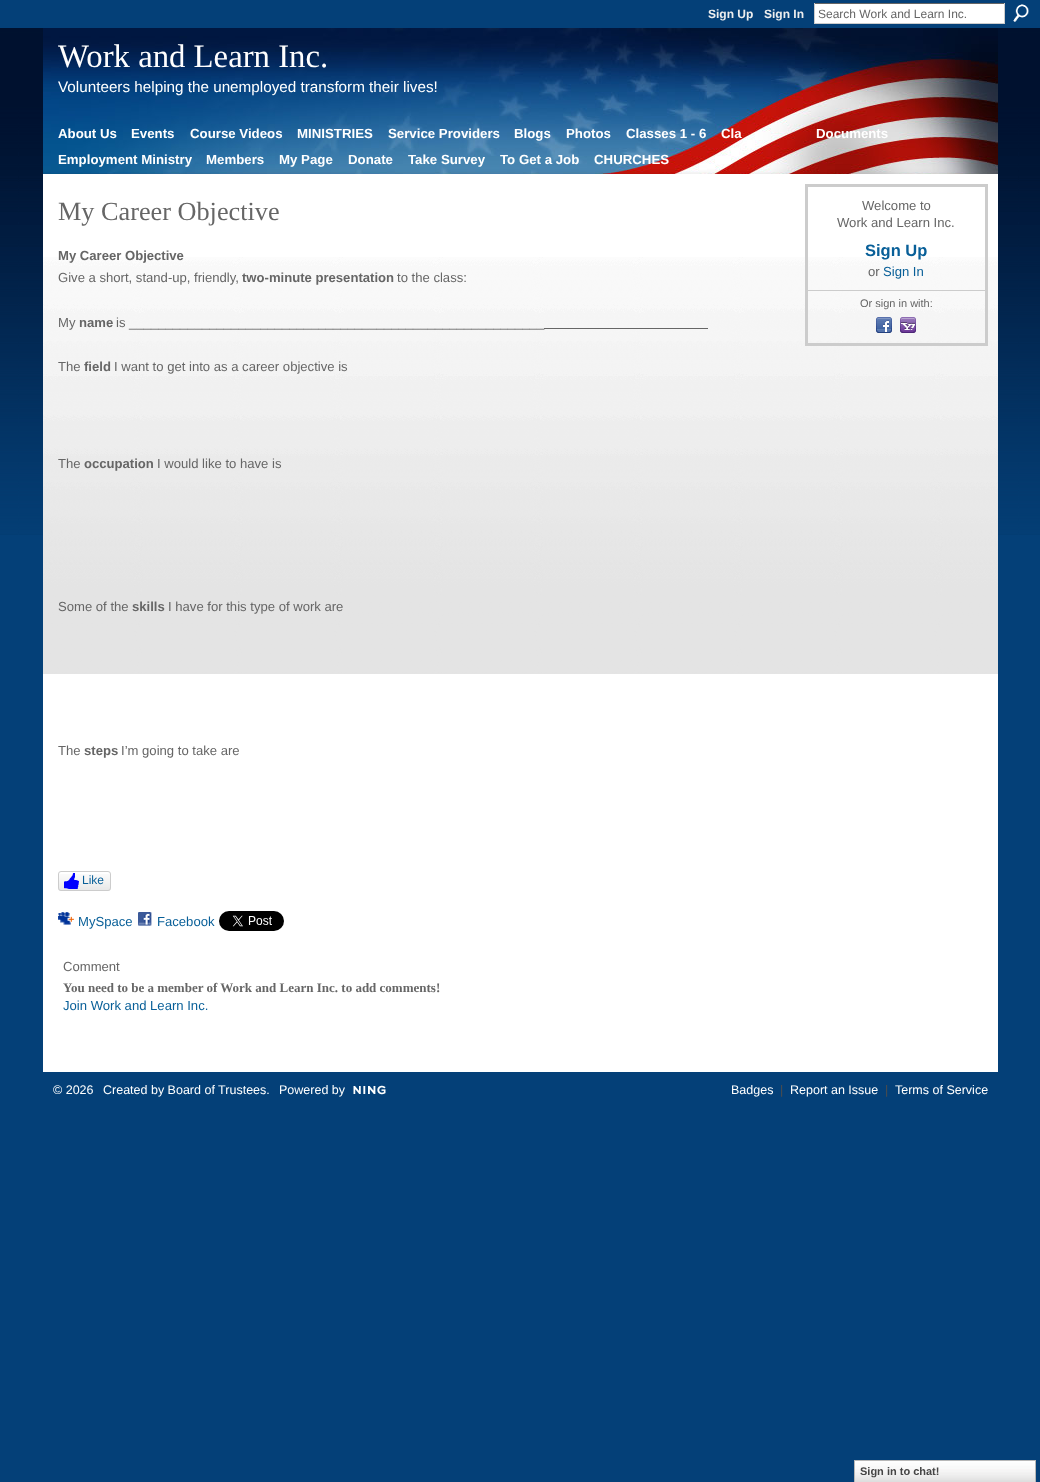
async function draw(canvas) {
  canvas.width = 1040
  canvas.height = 1482
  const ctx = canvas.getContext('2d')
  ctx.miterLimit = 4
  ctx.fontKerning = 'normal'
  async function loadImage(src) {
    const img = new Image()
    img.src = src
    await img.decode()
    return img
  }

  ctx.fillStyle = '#044078'
  ctx.fillRect(0, 0, 1040, 1482)
  ctx.drawImage(await loadImage('image0.png'), 0, 28, 1040, 507)
  ctx.font = 'bold 12px Liberation Sans'
  ctx.fillStyle = '#eee'
  ctx.fillText('Sign Up', 708, 18)
  ctx.fillText('Sign In', 764, 18)
  ctx.fillStyle = '#fff'
  ctx.fillRect(815, 4, 189, 19)
  ctx.fillStyle = '#666'
  ctx.fillRect(814, 3, 191, 1)
  ctx.fillStyle = '#ccc'
  ctx.fillRect(1004, 3, 1, 21)
  ctx.fillRect(814, 23, 191, 1)
  ctx.fillRect(814, 3, 1, 21)
  ctx.font = '12px Liberation Sans'
  ctx.fillStyle = '#666'
  ctx.fillText('Search Work and Learn Inc.', 818, 18)
  ctx.drawImage(await loadImage('image1.png'), 1013, 4, 16, 18)
  ctx.drawImage(await loadImage('image2.png'), 43, 28, 955, 146)
  ctx.font = '32.75px Liberation Serif'
  ctx.fillStyle = '#fff'
  ctx.fillText('Work and Learn Inc.', 58, 67)
  ctx.font = '15.25px Liberation Sans'
  ctx.fillText('Volunteers helping the unemployed transform their lives!', 58, 92)
  ctx.font = 'bold 13.25px Liberation Sans'
  ctx.fillText('About Us', 58, 138)
  ctx.fillText('Events', 131, 138)
  ctx.fillText('Course Videos', 190, 138)
  ctx.fillText('MINISTRIES', 297, 138)
  ctx.fillText('Service Providers', 388, 138)
  ctx.fillText('Blogs', 514, 138)
  ctx.fillText('Photos', 566, 138)
  ctx.fillText('Classes 1 - 6', 626, 138)
  ctx.fillText('Cla', 721, 138)
  ctx.fillText('Documents', 816, 138)
  ctx.fillText('Employment Ministry', 58, 164)
  ctx.fillText('Members', 206, 164)
  ctx.fillText('My Page', 279, 164)
  ctx.fillText('Donate', 348, 164)
  ctx.fillText('Take Survey', 408, 164)
  ctx.fillText('To Get a Job', 500, 164)
  ctx.fillText('CHURCHES', 594, 164)
  ctx.fillRect(43, 174, 955, 898)
  ctx.drawImage(await loadImage('image3.png'), 43, 257, 955, 417)
  ctx.font = '26.25px Liberation Serif'
  ctx.fillStyle = '#666'
  ctx.fillText('My Career Objective', 58, 220)
  ctx.font = 'bold 13.1px Liberation Sans'
  ctx.fillText('My Career Objective', 58, 260)
  ctx.font = '13.1px Liberation Sans'
  ctx.fillText('Give a short, stand-up, friendly,', 58, 282)
  ctx.font = 'bold 13.1px Liberation Sans'
  ctx.fillText('two-minute presentation', 242, 282)
  ctx.font = '13.1px Liberation Sans'
  ctx.fillText('to the class:', 397, 282)
  ctx.fillText('My', 58, 327)
  ctx.font = 'bold 13.1px Liberation Sans'
  ctx.fillText('name', 79, 327)
  ctx.font = '13.1px Liberation Sans'
  ctx.fillText('is _________________________________________________________', 116, 327)
  ctx.fillRect(544, 328, 164, 1)
  ctx.fillText('The', 58, 371)
  ctx.font = 'bold 13.1px Liberation Sans'
  ctx.fillText('field', 84, 371)
  ctx.font = '13.1px Liberation Sans'
  ctx.fillText('I want to get into as a career objective is', 114, 371)
  ctx.fillText('The', 58, 468)
  ctx.font = 'bold 13.1px Liberation Sans'
  ctx.fillText('occupation', 84, 468)
  ctx.font = '13.1px Liberation Sans'
  ctx.fillText('I would like to have is', 157, 468)
  ctx.fillText('Some of the', 58, 611)
  ctx.font = 'bold 13.1px Liberation Sans'
  ctx.fillText('skills', 132, 611)
  ctx.font = '13.1px Liberation Sans'
  ctx.fillText('I have for this type of work are', 168, 611)
  ctx.fillText('The', 58, 755)
  ctx.font = 'bold 13.1px Liberation Sans'
  ctx.fillText('steps', 84, 755)
  ctx.font = '13.1px Liberation Sans'
  ctx.fillText('I’m going to take are', 121, 755)
  ctx.drawImage(await loadImage('image4.png'), 58, 874, 53, 17)
  ctx.beginPath()
  ctx.roundRect(58.5, 871.5, 52, 19, 2.5)
  ctx.strokeStyle = '#ccc'
  ctx.stroke()
  ctx.drawImage(await loadImage('image5.png'), 64, 873, 15, 16)
  ctx.font = '12px Liberation Sans'
  ctx.fillStyle = '#085f98'
  ctx.fillText('Like', 82, 884)
  ctx.drawImage(await loadImage('image6.png'), 58, 912, 16, 13)
  ctx.font = '13.1px Liberation Sans'
  ctx.fillText('MySpace', 78, 926)
  ctx.drawImage(await loadImage('image7.png'), 138, 912, 14, 14)
  ctx.fillText('Facebook', 157, 926)
  ctx.drawImage(await loadImage('image8.png'), 219, 911, 65, 20)
  ctx.fillStyle = '#666'
  ctx.fillText('Comment', 63, 971)
  ctx.font = 'bold 13px Liberation Serif'
  ctx.fillText('You need to be a member of Work and Learn Inc. to add comments!', 63, 992)
  ctx.font = '13.1px Liberation Sans'
  ctx.fillStyle = '#085f98'
  ctx.fillText('Join Work and Learn Inc.', 63, 1010)
  ctx.lineWidth = 3
  ctx.strokeRect(806.5, 185.5, 180, 159)
  ctx.fillStyle = '#666'
  ctx.fillText('Welcome to', 862, 210)
  ctx.fillText('Work and Learn Inc.', 837, 227)
  ctx.font = 'bold 16.5px Liberation Sans'
  ctx.fillStyle = '#085f98'
  ctx.fillText('Sign Up', 865, 256)
  ctx.font = '13.1px Liberation Sans'
  ctx.fillStyle = '#666'
  ctx.fillText('or', 868, 276)
  ctx.fillStyle = '#085f98'
  ctx.fillText('Sign In', 883, 276)
  ctx.fillStyle = '#ccc'
  ctx.fillRect(808, 290, 177, 1)
  ctx.font = '11px Liberation Sans'
  ctx.fillStyle = '#666'
  ctx.fillText('Or sign in with:', 860, 307)
  ctx.drawImage(await loadImage('image9.png'), 876, 317, 16, 16)
  ctx.drawImage(await loadImage('image10.png'), 900, 317, 16, 16)
  ctx.font = '12.5px Liberation Sans'
  ctx.fillStyle = '#fff'
  ctx.fillText('© 2026', 53, 1094)
  ctx.fillText('Created by Board of Trustees.', 103, 1094)
  ctx.fillText('Powered by', 279, 1094)
  ctx.drawImage(await loadImage('image11.png'), 353, 1085, 33, 10)
  ctx.fillText('Badges', 731, 1094)
  ctx.fillStyle = '#4d4d4d'
  ctx.fillText('|', 780, 1094)
  ctx.fillStyle = '#fff'
  ctx.fillText('Report an Issue', 790, 1094)
  ctx.fillStyle = '#4d4d4d'
  ctx.fillText('|', 885, 1094)
  ctx.fillStyle = '#fff'
  ctx.fillText('Terms of Service', 895, 1094)
  ctx.drawImage(await loadImage('image12.png'), 855, 1461, 180, 21)
  ctx.strokeStyle = '#b7b7b7'
  ctx.lineWidth = 1
  ctx.strokeRect(854.5, 1460.5, 181, 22)
  ctx.font = 'bold 11px Liberation Sans'
  ctx.fillStyle = '#454545'
  ctx.fillText('Sign in to chat!', 860, 1475)
}

draw(document.querySelector('canvas'))
